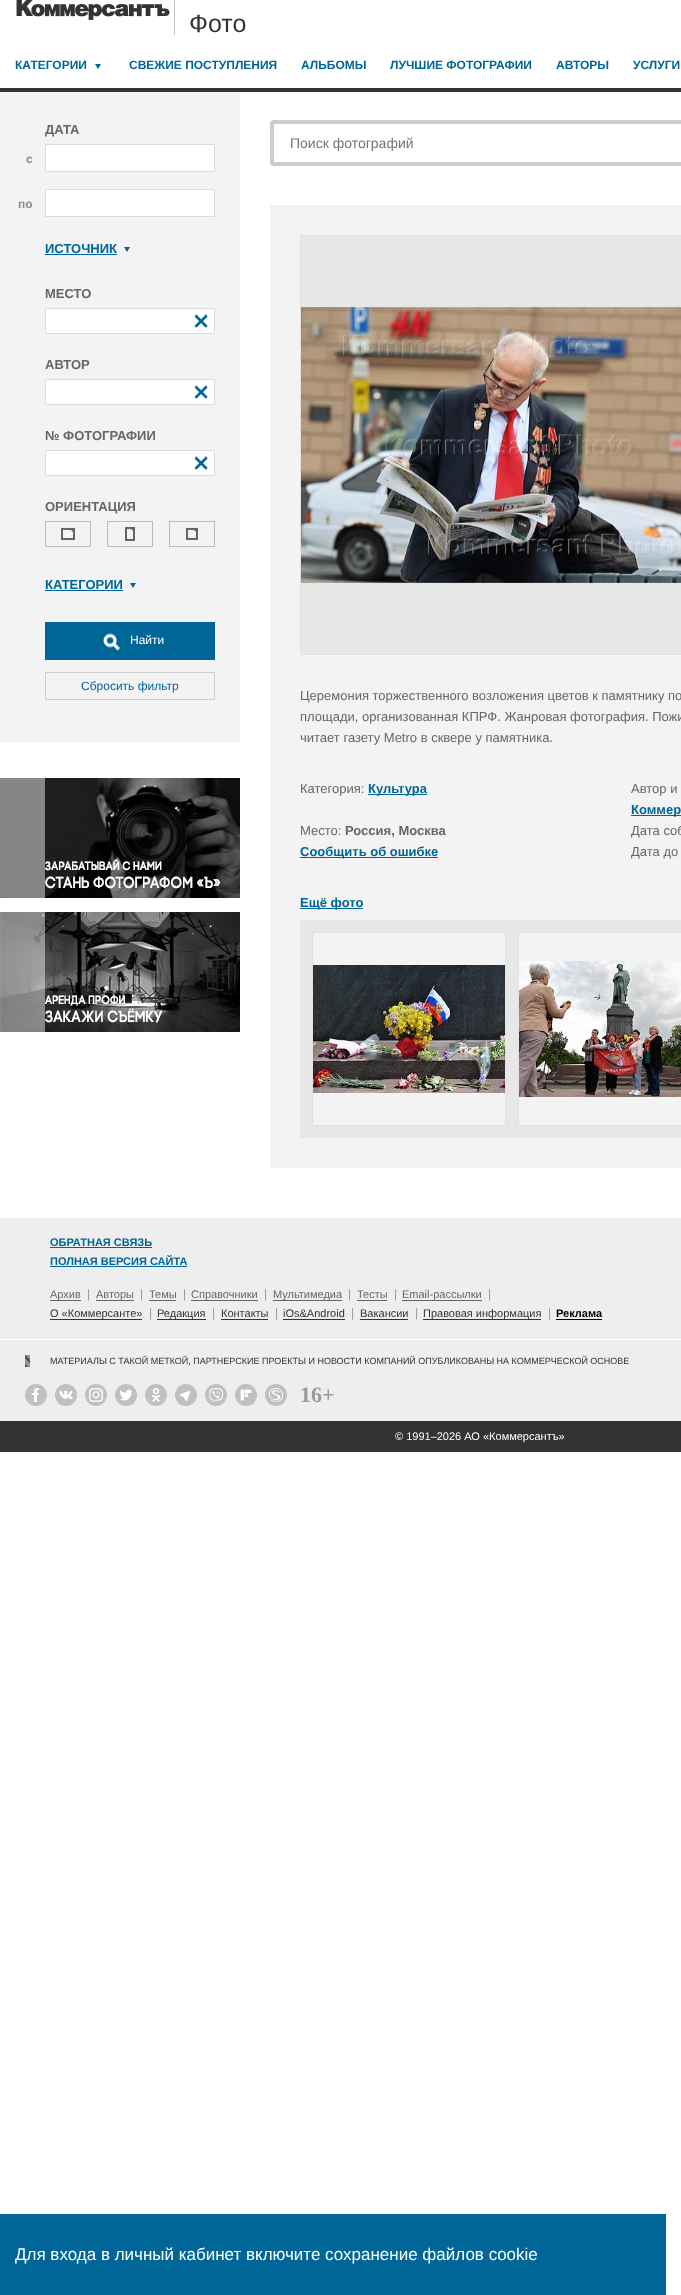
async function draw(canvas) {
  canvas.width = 681
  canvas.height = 2295
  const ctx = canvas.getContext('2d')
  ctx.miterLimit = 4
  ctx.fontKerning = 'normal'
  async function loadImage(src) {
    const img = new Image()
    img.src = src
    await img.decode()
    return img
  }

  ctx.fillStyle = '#fff'
  ctx.fillRect(0, 0, 681, 2295)
  ctx.drawImage(await loadImage('image0.png'), 16, 0, 154, 20)
  ctx.fillStyle = '#c9c9c9'
  ctx.fillRect(174, 0, 1, 35)
  ctx.font = '25px Liberation Sans'
  ctx.fillStyle = '#333'
  ctx.fillText('Фото', 189, 32)
  ctx.font = 'bold 12px Liberation Sans'
  ctx.fillStyle = '#006697'
  ctx.fillText('КАТЕГОРИИ', 15, 69)
  ctx.beginPath()
  ctx.moveTo(95, 64)
  ctx.lineTo(101, 64)
  ctx.lineTo(98, 69)
  ctx.closePath()
  ctx.fill()
  ctx.fillText('СВЕЖИЕ ПОСТУПЛЕНИЯ', 129, 69)
  ctx.fillText('АЛЬБОМЫ', 301, 69)
  ctx.fillText('ЛУЧШИЕ ФОТОГРАФИИ', 390, 69)
  ctx.fillText('АВТОРЫ', 556, 69)
  ctx.fillText('УСЛУГИ', 633, 69)
  ctx.fillStyle = '#333'
  ctx.fillRect(0, 88, 681, 4)
  ctx.fillStyle = '#f3f3f3'
  ctx.fillRect(0, 92, 240, 650)
  ctx.font = 'bold 13px Liberation Sans'
  ctx.fillStyle = '#666'
  ctx.fillText('ДАТА', 45, 134)
  ctx.font = 'bold 12px Liberation Sans'
  ctx.fillStyle = '#8c8c8c'
  ctx.fillText('с', 26, 163)
  ctx.fillStyle = '#fff'
  ctx.beginPath()
  ctx.rect(45.5, 144.5, 169, 27)
  ctx.fill()
  ctx.strokeStyle = '#dcdcdc'
  ctx.stroke()
  ctx.fillStyle = '#8c8c8c'
  ctx.fillText('по', 18, 208)
  ctx.fillStyle = '#fff'
  ctx.beginPath()
  ctx.rect(45.5, 189.5, 169, 27)
  ctx.fill()
  ctx.stroke()
  ctx.font = 'bold 13px Liberation Sans'
  ctx.fillStyle = '#006697'
  ctx.fillText('ИСТОЧНИК', 45, 253)
  ctx.fillRect(45, 254, 72, 1)
  ctx.beginPath()
  ctx.moveTo(124, 247)
  ctx.lineTo(130, 247)
  ctx.lineTo(127, 252)
  ctx.closePath()
  ctx.fill()
  ctx.fillStyle = '#666'
  ctx.fillText('МЕСТО', 45, 298)
  ctx.fillStyle = '#fff'
  ctx.beginPath()
  ctx.rect(45.5, 308.5, 169, 25)
  ctx.fill()
  ctx.stroke()
  ctx.drawImage(await loadImage('image1.png'), 194, 314, 14, 14)
  ctx.fillStyle = '#666'
  ctx.fillText('АВТОР', 45, 369)
  ctx.fillStyle = '#fff'
  ctx.beginPath()
  ctx.rect(45.5, 379.5, 169, 25)
  ctx.fill()
  ctx.stroke()
  ctx.drawImage(await loadImage('image1.png'), 194, 385, 14, 14)
  ctx.fillStyle = '#666'
  ctx.fillText('№ ФОТОГРАФИИ', 45, 440)
  ctx.fillStyle = '#fff'
  ctx.beginPath()
  ctx.rect(45.5, 450.5, 169, 25)
  ctx.fill()
  ctx.stroke()
  ctx.drawImage(await loadImage('image1.png'), 194, 456, 14, 14)
  ctx.fillStyle = '#666'
  ctx.fillText('ОРИЕНТАЦИЯ', 45, 511)
  ctx.strokeStyle = '#bbb'
  ctx.strokeRect(45.5, 521.5, 45, 25)
  ctx.drawImage(await loadImage('image2.png'), 61, 528, 14, 12)
  ctx.strokeRect(107.5, 521.5, 45, 25)
  ctx.drawImage(await loadImage('image3.png'), 125, 527, 10, 14)
  ctx.strokeRect(169.5, 521.5, 45, 25)
  ctx.drawImage(await loadImage('image4.png'), 186, 528, 12, 12)
  ctx.fillStyle = '#006697'
  ctx.fillText('КАТЕГОРИИ', 45, 589)
  ctx.fillRect(45, 590, 78, 1)
  ctx.beginPath()
  ctx.moveTo(130, 583)
  ctx.lineTo(136, 583)
  ctx.lineTo(133, 588)
  ctx.closePath()
  ctx.fill()
  ctx.fillRect(45, 622, 170, 38)
  ctx.drawImage(await loadImage('image5.png'), 103, 633, 17, 18)
  ctx.font = '12px Liberation Sans'
  ctx.fillStyle = '#fff'
  ctx.fillText('Найти', 130, 644)
  ctx.strokeStyle = '#cfcfcf'
  ctx.strokeRect(45.5, 672.5, 169, 27)
  ctx.fillStyle = '#006697'
  ctx.fillText('Сбросить фильтр', 81, 690)
  ctx.drawImage(await loadImage('image6.png'), 0, 778, 240, 120)
  ctx.drawImage(await loadImage('image7.png'), 0, 912, 240, 120)
  ctx.beginPath()
  ctx.roundRect(272, 122, 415, 42, 2)
  ctx.strokeStyle = '#ccc'
  ctx.lineWidth = 4
  ctx.stroke()
  ctx.font = '14px Liberation Sans'
  ctx.fillStyle = '#757575'
  ctx.fillText('Поиск фотографий', 290, 148)
  ctx.fillStyle = '#f3f3f3'
  ctx.fillRect(270, 205, 411, 963)
  ctx.fillStyle = '#e7e7e7'
  ctx.beginPath()
  ctx.rect(300.5, 235.5, 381, 419)
  ctx.fill()
  ctx.strokeStyle = '#e2e2e2'
  ctx.lineWidth = 1
  ctx.stroke()
  ctx.drawImage(await loadImage('image8.png'), 301, 307, 380, 276)
  ctx.font = '13px Liberation Sans'
  ctx.fillStyle = '#666'
  ctx.fillText('Церемония торжественного возложения цветов к памятнику по', 300, 700)
  ctx.fillText('площади, организованная КПРФ. Жанровая фотография. Пожи', 300, 721)
  ctx.fillText('читает газету Metro в сквере у памятника.', 300, 742)
  ctx.fillText('Категория:', 300, 793)
  ctx.fillStyle = '#006697'
  ctx.fillRect(368, 794, 59, 1)
  ctx.font = 'bold 13px Liberation Sans'
  ctx.fillText('Культура', 368, 793)
  ctx.font = '13px Liberation Sans'
  ctx.fillStyle = '#666'
  ctx.fillText('Автор и', 631, 793)
  ctx.fillStyle = '#006697'
  ctx.fillRect(631, 815, 50, 1)
  ctx.font = 'bold 13px Liberation Sans'
  ctx.fillText('Коммер', 631, 814)
  ctx.font = '13px Liberation Sans'
  ctx.fillStyle = '#666'
  ctx.fillText('Место:', 300, 835)
  ctx.font = 'bold 13px Liberation Sans'
  ctx.fillText('Россия, Москва', 345, 835)
  ctx.font = '13px Liberation Sans'
  ctx.fillText('Дата соб', 631, 835)
  ctx.fillStyle = '#006697'
  ctx.fillRect(300, 857, 138, 1)
  ctx.font = 'bold 13px Liberation Sans'
  ctx.fillText('Сообщить об ошибке', 300, 856)
  ctx.font = '13px Liberation Sans'
  ctx.fillStyle = '#666'
  ctx.fillText('Дата до', 631, 856)
  ctx.fillStyle = '#006697'
  ctx.fillRect(300, 908, 63, 1)
  ctx.font = 'bold 13px Liberation Sans'
  ctx.fillText('Ещё фото', 300, 907)
  ctx.fillStyle = '#e7e7e7'
  ctx.fillRect(300, 920, 381, 218)
  ctx.fillStyle = '#f3f3f3'
  ctx.beginPath()
  ctx.rect(312.5, 932.5, 193, 193)
  ctx.fill()
  ctx.stroke()
  ctx.drawImage(await loadImage('image9.png'), 313, 965, 192, 128)
  ctx.beginPath()
  ctx.rect(518.5, 932.5, 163, 193)
  ctx.fill()
  ctx.stroke()
  ctx.drawImage(await loadImage('image10.png'), 519, 961, 162, 136)
  ctx.fillStyle = '#eee'
  ctx.fillRect(0, 1218, 681, 203)
  ctx.fillStyle = '#fff'
  ctx.fillRect(0, 1339, 681, 1)
  ctx.font = 'bold 11px Liberation Sans'
  ctx.fillStyle = '#006697'
  ctx.fillText('ОБРАТНАЯ СВЯЗЬ', 50, 1246)
  ctx.fillRect(50, 1247, 102, 1)
  ctx.fillText('ПОЛНАЯ ВЕРСИЯ САЙТА', 50, 1265)
  ctx.fillRect(50, 1266, 137, 1)
  ctx.fillStyle = '#666'
  ctx.fillRect(50, 1300, 31, 1)
  ctx.font = '11px Liberation Sans'
  ctx.fillText('Архив', 50, 1298)
  ctx.font = '12px Liberation Sans'
  ctx.fillStyle = '#999'
  ctx.fillText('|', 87, 1298)
  ctx.fillStyle = '#666'
  ctx.fillRect(96, 1300, 38, 1)
  ctx.font = '11px Liberation Sans'
  ctx.fillText('Авторы', 96, 1298)
  ctx.font = '12px Liberation Sans'
  ctx.fillStyle = '#999'
  ctx.fillText('|', 140, 1298)
  ctx.font = '11px Liberation Sans'
  ctx.fillStyle = '#666'
  ctx.fillText('Темы', 149, 1298)
  ctx.fillRect(149, 1300, 27, 1)
  ctx.font = '12px Liberation Sans'
  ctx.fillStyle = '#999'
  ctx.fillText('|', 183, 1298)
  ctx.fillStyle = '#666'
  ctx.fillRect(191, 1300, 67, 1)
  ctx.font = '11px Liberation Sans'
  ctx.fillText('Справочники', 191, 1298)
  ctx.font = '12px Liberation Sans'
  ctx.fillStyle = '#999'
  ctx.fillText('|', 264, 1298)
  ctx.fillStyle = '#666'
  ctx.fillRect(273, 1300, 69, 1)
  ctx.font = '11px Liberation Sans'
  ctx.fillText('Мультимедиа', 273, 1298)
  ctx.font = '12px Liberation Sans'
  ctx.fillStyle = '#999'
  ctx.fillText('|', 348, 1298)
  ctx.font = '11px Liberation Sans'
  ctx.fillStyle = '#666'
  ctx.fillText('Тесты', 357, 1298)
  ctx.fillRect(357, 1300, 30, 1)
  ctx.font = '12px Liberation Sans'
  ctx.fillStyle = '#999'
  ctx.fillText('|', 394, 1298)
  ctx.fillStyle = '#666'
  ctx.fillRect(402, 1300, 80, 1)
  ctx.font = '11px Liberation Sans'
  ctx.fillText('Email-рассылки', 402, 1298)
  ctx.font = '12px Liberation Sans'
  ctx.fillStyle = '#999'
  ctx.fillText('|', 488, 1298)
  ctx.fillStyle = '#333'
  ctx.fillRect(50, 1319, 92, 1)
  ctx.font = '11px Liberation Sans'
  ctx.fillText('О «Коммерсанте»', 50, 1317)
  ctx.font = '12px Liberation Sans'
  ctx.fillStyle = '#999'
  ctx.fillText('|', 149, 1317)
  ctx.fillStyle = '#333'
  ctx.fillRect(157, 1319, 49, 1)
  ctx.font = '11px Liberation Sans'
  ctx.fillText('Редакция', 157, 1317)
  ctx.font = '12px Liberation Sans'
  ctx.fillStyle = '#999'
  ctx.fillText('|', 212, 1317)
  ctx.font = '11px Liberation Sans'
  ctx.fillStyle = '#333'
  ctx.fillText('Контакты', 221, 1317)
  ctx.fillRect(221, 1319, 47, 1)
  ctx.font = '12px Liberation Sans'
  ctx.fillStyle = '#999'
  ctx.fillText('|', 275, 1317)
  ctx.font = '11px Liberation Sans'
  ctx.fillStyle = '#333'
  ctx.fillText('iOs&Android', 283, 1317)
  ctx.fillRect(283, 1319, 62, 1)
  ctx.font = '12px Liberation Sans'
  ctx.fillStyle = '#999'
  ctx.fillText('|', 351, 1317)
  ctx.font = '11px Liberation Sans'
  ctx.fillStyle = '#333'
  ctx.fillText('Вакансии', 360, 1317)
  ctx.fillRect(360, 1319, 48, 1)
  ctx.font = '12px Liberation Sans'
  ctx.fillStyle = '#999'
  ctx.fillText('|', 415, 1317)
  ctx.fillStyle = '#333'
  ctx.fillRect(423, 1319, 118, 1)
  ctx.font = '11px Liberation Sans'
  ctx.fillText('Правовая информация', 423, 1317)
  ctx.font = '12px Liberation Sans'
  ctx.fillStyle = '#999'
  ctx.fillText('|', 548, 1317)
  ctx.font = 'bold 11px Liberation Sans'
  ctx.fillStyle = '#000'
  ctx.fillText('Реклама', 556, 1317)
  ctx.fillRect(556, 1319, 46, 1)
  ctx.drawImage(await loadImage('image11.png'), 25, 1355, 5, 12)
  ctx.font = '9px Liberation Sans'
  ctx.fillStyle = '#333'
  ctx.fillText('МАТЕРИАЛЫ С ТАКОЙ МЕТКОЙ, ПАРТНЕРСКИЕ ПРОЕКТЫ И НОВОСТИ КОМПАНИЙ ОПУБЛИКОВАНЫ НА КОММЕРЧЕСКОЙ ОСНОВЕ', 50, 1364)
  ctx.fillStyle = '#c0c0c0'
  ctx.beginPath()
  ctx.arc(36, 1395, 11, 0, 2 * Math.PI)
  ctx.fill()
  ctx.drawImage(await loadImage('image12.png'), 31, 1388, 8, 14)
  ctx.beginPath()
  ctx.arc(66, 1395, 11, 0, 2 * Math.PI)
  ctx.fill()
  ctx.drawImage(await loadImage('image13.png'), 59, 1390, 14, 9)
  ctx.beginPath()
  ctx.arc(96, 1395, 11, 0, 2 * Math.PI)
  ctx.fill()
  ctx.drawImage(await loadImage('image14.png'), 89, 1388, 14, 14)
  ctx.beginPath()
  ctx.arc(126, 1395, 11, 0, 2 * Math.PI)
  ctx.fill()
  ctx.drawImage(await loadImage('image15.png'), 120, 1389, 13, 12)
  ctx.beginPath()
  ctx.arc(156, 1395, 11, 0, 2 * Math.PI)
  ctx.fill()
  ctx.drawImage(await loadImage('image16.png'), 152, 1388, 8, 14)
  ctx.beginPath()
  ctx.arc(186, 1395, 11, 0, 2 * Math.PI)
  ctx.fill()
  ctx.drawImage(await loadImage('image17.png'), 180, 1391, 10, 10)
  ctx.beginPath()
  ctx.arc(216, 1395, 11, 0, 2 * Math.PI)
  ctx.fill()
  ctx.drawImage(await loadImage('image18.png'), 209, 1388, 14, 15)
  ctx.beginPath()
  ctx.arc(246, 1395, 11, 0, 2 * Math.PI)
  ctx.fill()
  ctx.drawImage(await loadImage('image19.png'), 240, 1389, 12, 12)
  ctx.beginPath()
  ctx.arc(276, 1395, 11, 0, 2 * Math.PI)
  ctx.fill()
  ctx.drawImage(await loadImage('image20.png'), 269, 1388, 14, 14)
  ctx.font = 'bold 22px Liberation Serif'
  ctx.fillStyle = '#999'
  ctx.fillText('16+', 300, 1402)
  ctx.fillStyle = '#333'
  ctx.fillRect(0, 1421, 681, 31)
  ctx.font = '11px Liberation Sans'
  ctx.fillStyle = '#fff'
  ctx.fillText('© 1991–2026 АО «Коммерсантъ»', 395, 1440)
  ctx.fillStyle = '#006697'
  ctx.fillRect(0, 2214, 666, 81)
  ctx.font = '17px Liberation Sans'
  ctx.fillStyle = '#fff'
  ctx.fillText('Для входа в личный кабинет включите сохранение файлов cookie', 15, 2260)
}

draw(document.querySelector('canvas'))
